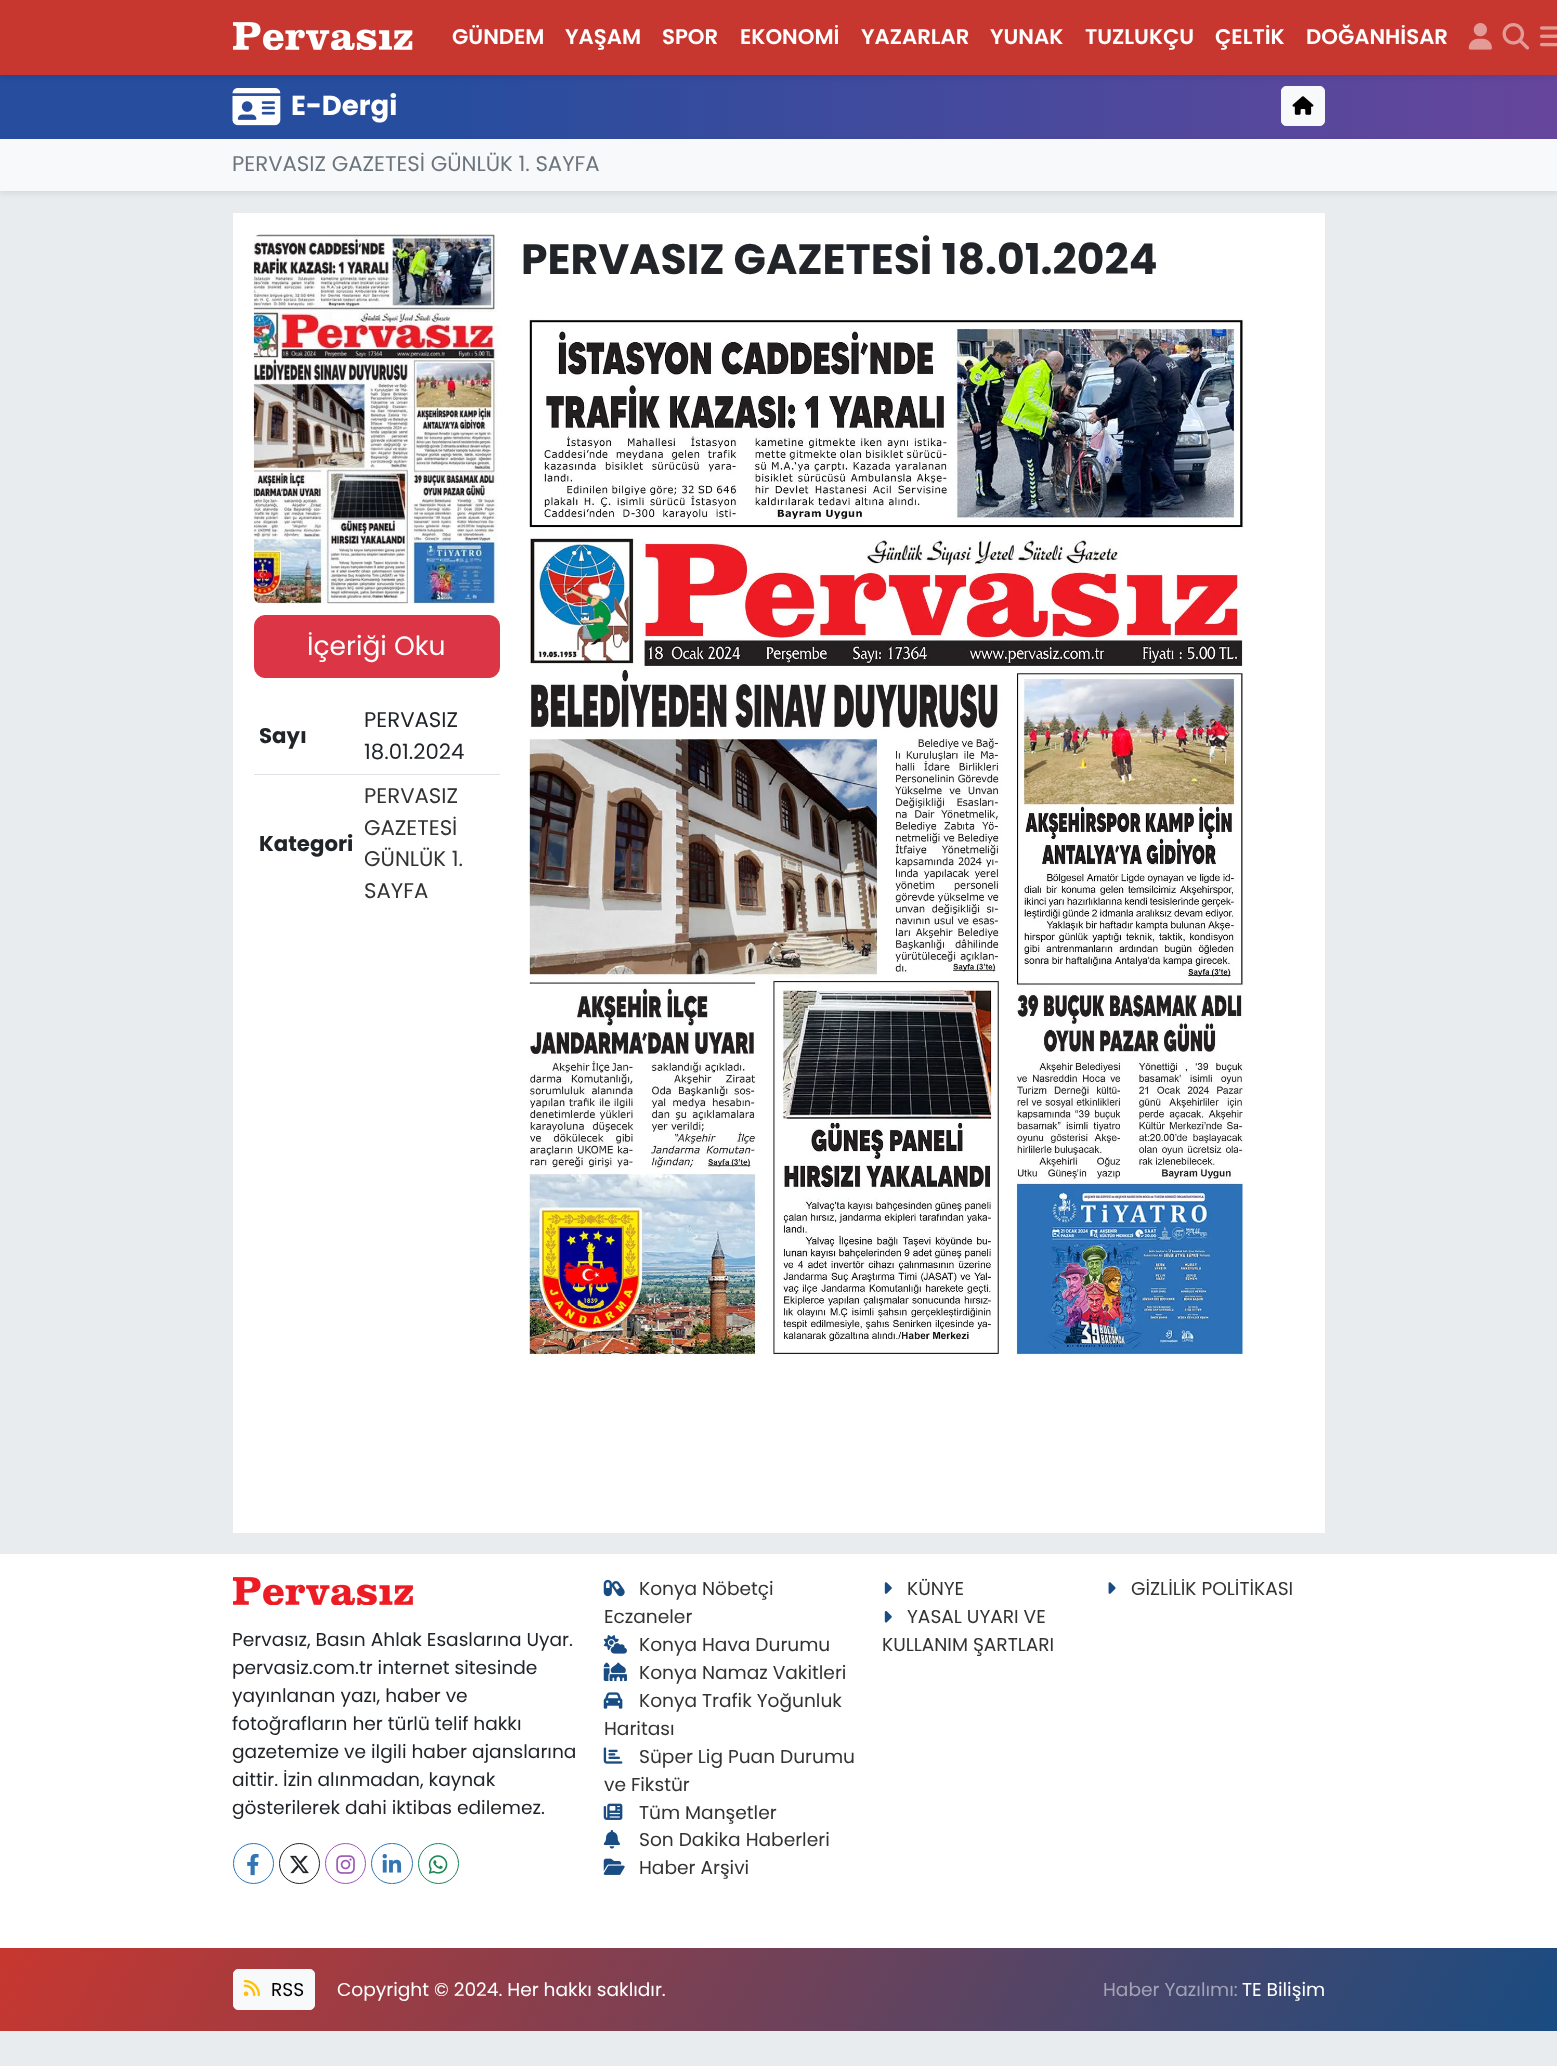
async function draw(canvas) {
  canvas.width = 1557
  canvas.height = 2066
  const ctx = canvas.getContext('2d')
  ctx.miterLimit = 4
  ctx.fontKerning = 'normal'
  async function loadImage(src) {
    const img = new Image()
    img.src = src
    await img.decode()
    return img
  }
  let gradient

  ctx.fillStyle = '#e9ecef'
  ctx.fillRect(0, 0, 1557, 2066)
  gradient = ctx.createLinearGradient(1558, 107, 0, 107)
  gradient.addColorStop(0, '#66469c')
  gradient.addColorStop(0.72, '#274d9e')
  ctx.fillStyle = gradient
  ctx.fillRect(0, 75, 1557, 64)
  ctx.fillStyle = '#00000012'
  ctx.filter = 'blur(2.5px)'
  ctx.beginPath()
  ctx.rect(0, 3, 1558, 75)
  ctx.fill()
  ctx.filter = 'none'
  ctx.fillStyle = '#c7372f'
  ctx.fillRect(0, 0, 1557, 75)
  ctx.drawImage(await loadImage('image0.png'), 233, 22, 180, 28)
  ctx.font = '600 21.25px Poppins'
  ctx.fillStyle = '#fff'
  ctx.fillText('GÜNDEM', 452, 44)
  ctx.fillText('YAŞAM', 565, 44)
  ctx.fillText('SPOR', 662, 44)
  ctx.fillText('EKONOMİ', 740, 44)
  ctx.fillText('YAZARLAR', 861, 44)
  ctx.fillText('YUNAK', 990, 44)
  ctx.fillText('TUZLUKÇU', 1085, 44)
  ctx.fillText('ÇELTİK', 1215, 44)
  ctx.fillText('DOĞANHİSAR', 1306, 44)
  ctx.drawImage(await loadImage('image1.png'), 1468, 23, 24, 27)
  ctx.drawImage(await loadImage('image2.png'), 1502, 23, 27, 27)
  ctx.drawImage(await loadImage('image3.png'), 1540, 26, 17, 21)
  ctx.drawImage(await loadImage('image4.png'), 232, 88, 49, 38)
  ctx.font = 'bold 27.5px Poppins'
  ctx.fillText('E-Dergi', 291, 115)
  ctx.fillStyle = '#f8f9fa'
  ctx.beginPath()
  ctx.roundRect(1281.5, 86.5, 43, 39, 4.5)
  ctx.fill()
  ctx.strokeStyle = '#f8f9fa'
  ctx.stroke()
  ctx.drawImage(await loadImage('image5.png'), 1292, 96, 22, 19)
  ctx.fillStyle = '#00000012'
  ctx.filter = 'blur(2.5px)'
  ctx.beginPath()
  ctx.rect(0, 141, 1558, 53)
  ctx.fill()
  ctx.filter = 'none'
  ctx.fillStyle = '#f8f9fa'
  ctx.fillRect(0, 139, 1557, 52)
  ctx.font = '21.25px Poppins'
  ctx.fillStyle = '#6c757d'
  ctx.fillText('PERVASIZ GAZETESİ GÜNLÜK 1. SAYFA', 232, 171)
  ctx.fillStyle = '#fff'
  ctx.fillRect(233, 213, 1092, 1320)
  ctx.font = 'bold 42.5px Poppins'
  ctx.fillStyle = '#212529'
  ctx.fillText('PERVASIZ GAZETESİ 18.01.2024', 521, 274)
  ctx.drawImage(await loadImage('image6.png'), 527, 318, 718, 1039)
  ctx.drawImage(await loadImage('image7.png'), 253, 234, 247, 370)
  ctx.fillStyle = '#dc3545'
  ctx.beginPath()
  ctx.roundRect(254.5, 615.5, 245, 62, 10.5)
  ctx.fill()
  ctx.strokeStyle = '#dc3545'
  ctx.stroke()
  ctx.font = '26.5px Poppins'
  ctx.fillStyle = '#fff'
  ctx.fillText('İçeriği Oku', 307, 655)
  ctx.font = 'bold 21.25px Poppins'
  ctx.fillStyle = '#212529'
  ctx.fillText('Sayı', 259, 743)
  ctx.fillStyle = '#dee2e6'
  ctx.fillRect(254, 774, 246, 1)
  ctx.font = '21.25px Poppins'
  ctx.fillStyle = '#212529'
  ctx.fillText('PERVASIZ', 364, 727)
  ctx.fillText('18.01.2024', 364, 759)
  ctx.font = 'bold 21.25px Poppins'
  ctx.fillText('Kategori', 259, 851)
  ctx.font = '21.25px Poppins'
  ctx.fillStyle = '#333'
  ctx.fillText('PERVASIZ', 364, 803)
  ctx.fillText('GAZETESİ', 364, 835)
  ctx.fillText('GÜNLÜK 1.', 364, 866)
  ctx.fillText('SAYFA', 364, 898)
  ctx.fillStyle = '#fff'
  ctx.fillRect(0, 1554, 1557, 394)
  ctx.drawImage(await loadImage('image8.png'), 233, 1577, 180, 28)
  ctx.font = '18.6px Poppins'
  ctx.fillStyle = '#212529'
  ctx.fillText('Pervasız, Basın Ahlak Esaslarına Uyar.', 232, 1646)
  ctx.fillText('pervasiz.com.tr internet sitesinde', 232, 1674)
  ctx.fillText('yayınlanan yazı, haber ve', 232, 1702)
  ctx.fillText('fotoğrafların her türlü telif hakkı', 232, 1730)
  ctx.fillText('gazetemize ve ilgili haber ajanslarına', 232, 1758)
  ctx.fillText('aittir. İzin alınmadan, kaynak', 232, 1786)
  ctx.fillText('gösterilerek dahi iktibas edilemez.', 232, 1814)
  ctx.beginPath()
  ctx.arc(253.5, 1863.5, 20, 0, 2 * Math.PI)
  ctx.strokeStyle = '#3276b3'
  ctx.stroke()
  ctx.drawImage(await loadImage('image9.png'), 247, 1853, 12, 23)
  ctx.beginPath()
  ctx.arc(299.5, 1863.5, 20, 0, 2 * Math.PI)
  ctx.strokeStyle = '#212529'
  ctx.stroke()
  ctx.drawImage(await loadImage('image10.png'), 290, 1855, 19, 19)
  ctx.beginPath()
  ctx.arc(345.5, 1863.5, 20, 0, 2 * Math.PI)
  ctx.strokeStyle = '#9b59b6'
  ctx.stroke()
  ctx.drawImage(await loadImage('image11.png'), 336, 1855, 19, 19)
  ctx.beginPath()
  ctx.roundRect(371.5, 1843.5, 41, 40, 20)
  ctx.strokeStyle = '#3276b3'
  ctx.stroke()
  ctx.drawImage(await loadImage('image12.png'), 382, 1853, 20, 20)
  ctx.beginPath()
  ctx.arc(438.5, 1863.5, 20, 0, 2 * Math.PI)
  ctx.strokeStyle = '#198754'
  ctx.stroke()
  ctx.drawImage(await loadImage('image13.png'), 428, 1855, 20, 19)
  ctx.drawImage(await loadImage('image14.png'), 603, 1579, 22, 18)
  ctx.fillStyle = '#333'
  ctx.fillText('Konya Nöbetçi', 639, 1595)
  ctx.fillText('Eczaneler', 604, 1623)
  ctx.drawImage(await loadImage('image15.png'), 603, 1635, 24, 19)
  ctx.fillText('Konya Hava Durumu', 639, 1651)
  ctx.drawImage(await loadImage('image16.png'), 603, 1662, 24, 20)
  ctx.fillText('Konya Namaz Vakitleri', 639, 1679)
  ctx.drawImage(await loadImage('image17.png'), 603, 1692, 20, 17)
  ctx.fillText('Konya Trafik Yoğunluk', 639, 1707)
  ctx.fillText('Haritası', 604, 1735)
  ctx.drawImage(await loadImage('image18.png'), 603, 1747, 20, 17)
  ctx.fillText('Süper Lig Puan Durumu', 639, 1763)
  ctx.fillText('ve Fikstür', 604, 1791)
  ctx.drawImage(await loadImage('image19.png'), 603, 1803, 20, 17)
  ctx.fillText('Tüm Manşetler', 639, 1819)
  ctx.drawImage(await loadImage('image20.png'), 603, 1830, 17, 19)
  ctx.fillText('Son Dakika Haberleri', 639, 1846)
  ctx.drawImage(await loadImage('image21.png'), 603, 1858, 22, 17)
  ctx.fillText('Haber Arşivi', 639, 1874)
  ctx.drawImage(await loadImage('image22.png'), 884, 1582, 8, 12)
  ctx.fillText('KÜNYE', 907, 1595)
  ctx.drawImage(await loadImage('image23.png'), 1108, 1582, 8, 12)
  ctx.fillText('GİZLİLİK POLİTİKASI', 1131, 1595)
  ctx.drawImage(await loadImage('image24.png'), 884, 1611, 8, 12)
  ctx.fillText('YASAL UYARI VE', 907, 1623)
  ctx.fillText('KULLANIM ŞARTLARI', 882, 1651)
  gradient = ctx.createLinearGradient(177, 1642, 1381, 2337)
  gradient.addColorStop(0, '#c7372f')
  gradient.addColorStop(1, '#194c82')
  ctx.fillStyle = gradient
  ctx.fillRect(0, 1948, 1557, 83)
  ctx.fillStyle = '#f8f9fa'
  ctx.beginPath()
  ctx.roundRect(233.5, 1969.5, 81, 40, 4.5)
  ctx.fill()
  ctx.strokeStyle = '#f8f9fa'
  ctx.stroke()
  ctx.drawImage(await loadImage('image25.png'), 243, 1979, 17, 18)
  ctx.fillStyle = '#000'
  ctx.fillText('RSS', 271, 1996)
  ctx.fillStyle = '#fff'
  ctx.fillText('Copyright © 2024. Her hakkı saklıdır.', 337, 1996)
  ctx.fillStyle = '#a2a3b6'
  ctx.fillText('Haber Yazılımı:', 1103, 1996)
  ctx.fillStyle = '#fff'
  ctx.fillText('TE Bilişim', 1242, 1996)
}

draw(document.querySelector('canvas'))
